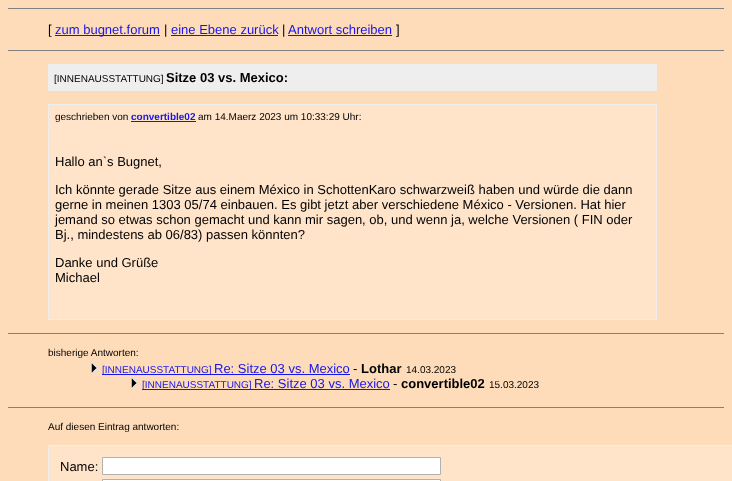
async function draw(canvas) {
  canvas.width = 732
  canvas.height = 481
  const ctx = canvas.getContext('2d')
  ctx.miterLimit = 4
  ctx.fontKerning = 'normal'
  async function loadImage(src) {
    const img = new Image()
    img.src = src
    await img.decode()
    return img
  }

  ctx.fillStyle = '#ffdcb9'
  ctx.fillRect(0, 0, 732, 481)
  ctx.fillStyle = '#808080'
  ctx.fillRect(8, 8, 716, 1)
  ctx.font = '13px Liberation Sans'
  ctx.fillStyle = '#000'
  ctx.fillText('[', 48, 34)
  ctx.fillStyle = '#1715e8'
  ctx.fillRect(55, 35, 105, 1)
  ctx.fillText('zum bugnet.forum', 55, 34)
  ctx.fillStyle = '#000'
  ctx.fillText('|', 164, 34)
  ctx.fillStyle = '#1715e8'
  ctx.fillText('eine Ebene zurück', 171, 34)
  ctx.fillRect(171, 35, 107, 1)
  ctx.fillStyle = '#000'
  ctx.fillText('|', 282, 34)
  ctx.fillStyle = '#1715e8'
  ctx.fillText('Antwort schreiben', 288, 34)
  ctx.fillRect(288, 35, 104, 1)
  ctx.fillStyle = '#000'
  ctx.fillText(']', 396, 34)
  ctx.fillStyle = '#808080'
  ctx.fillRect(8, 50, 716, 1)
  ctx.fillStyle = '#eee'
  ctx.fillRect(48, 64, 609, 27)
  ctx.font = '10px Liberation Sans'
  ctx.fillStyle = '#000'
  ctx.fillText('[INNENAUSSTATTUNG]', 54, 82)
  ctx.font = 'bold 13px Liberation Sans'
  ctx.fillText('Sitze 03 vs. Mexico:', 166, 82)
  ctx.fillStyle = '#eee'
  ctx.fillRect(48, 104, 609, 216)
  ctx.fillStyle = '#ffe4ca'
  ctx.fillRect(49, 105, 607, 214)
  ctx.font = '10px Liberation Sans'
  ctx.fillStyle = '#000'
  ctx.fillText('geschrieben von', 55, 120)
  ctx.font = 'bold 10px Liberation Sans'
  ctx.fillStyle = '#1715e8'
  ctx.fillText('convertible02', 131, 120)
  ctx.fillRect(131, 121, 65, 1)
  ctx.font = '10px Liberation Sans'
  ctx.fillStyle = '#000'
  ctx.fillText('am 14.Maerz 2023 um 10:33:29 Uhr:', 198, 120)
  ctx.font = '13px Liberation Sans'
  ctx.fillText('Hallo anˋs Bugnet,', 55, 166)
  ctx.fillText('Ich könnte gerade Sitze aus einem México in SchottenKaro schwarzweiß haben und würde die dann', 55, 194)
  ctx.fillText('gerne in meinen 1303 05/74 einbauen. Es gibt jetzt aber verschiedene México - Versionen. Hat hier', 55, 209)
  ctx.fillText('jemand so etwas schon gemacht und kann mir sagen, ob, und wenn ja, welche Versionen ( FIN oder', 55, 224)
  ctx.fillText('Bj., mindestens ab 06/83) passen könnten?', 55, 239)
  ctx.fillText('Danke und Grüße', 55, 267)
  ctx.fillText('Michael', 55, 282)
  ctx.fillStyle = '#808080'
  ctx.fillRect(8, 333, 716, 1)
  ctx.font = '10px Liberation Sans'
  ctx.fillStyle = '#000'
  ctx.fillText('bisherige Antworten:', 48, 356)
  ctx.drawImage(await loadImage('image0.png'), 91, 363, 7, 10)
  ctx.fillStyle = '#1715e8'
  ctx.fillRect(102, 374, 248, 1)
  ctx.fillText('[INNENAUSSTATTUNG]', 102, 373)
  ctx.font = '13px Liberation Sans'
  ctx.fillText('Re: Sitze 03 vs. Mexico', 214, 373)
  ctx.fillStyle = '#000'
  ctx.fillText('-', 353, 373)
  ctx.font = 'bold 13px Liberation Sans'
  ctx.fillText('Lothar', 361, 373)
  ctx.font = '10px Liberation Sans'
  ctx.fillText('14.03.2023', 406, 373)
  ctx.drawImage(await loadImage('image0.png'), 131, 378, 7, 10)
  ctx.fillStyle = '#1715e8'
  ctx.fillRect(142, 389, 248, 1)
  ctx.fillText('[INNENAUSSTATTUNG]', 142, 388)
  ctx.font = '13px Liberation Sans'
  ctx.fillText('Re: Sitze 03 vs. Mexico', 254, 388)
  ctx.fillStyle = '#000'
  ctx.fillText('-', 393, 388)
  ctx.font = 'bold 13px Liberation Sans'
  ctx.fillText('convertible02', 401, 388)
  ctx.font = '10px Liberation Sans'
  ctx.fillText('15.03.2023', 489, 388)
  ctx.fillStyle = '#808080'
  ctx.fillRect(8, 407, 716, 1)
  ctx.fillStyle = '#000'
  ctx.fillText('Auf diesen Eintrag antworten:', 48, 430)
  ctx.fillStyle = '#eee'
  ctx.fillRect(48, 445, 684, 36)
  ctx.fillStyle = '#ffe4ca'
  ctx.fillRect(49, 446, 683, 35)
  ctx.font = '13px Liberation Sans'
  ctx.fillStyle = '#000'
  ctx.fillText('Name:', 60, 471)
  ctx.fillStyle = '#fff'
  ctx.beginPath()
  ctx.rect(102.5, 457.5, 338, 17)
  ctx.fill()
  ctx.strokeStyle = '#b1b1b1'
  ctx.stroke()
  ctx.beginPath()
  ctx.rect(102.5, 479.5, 338, 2)
  ctx.fill()
  ctx.stroke()
}

draw(document.querySelector('canvas'))
